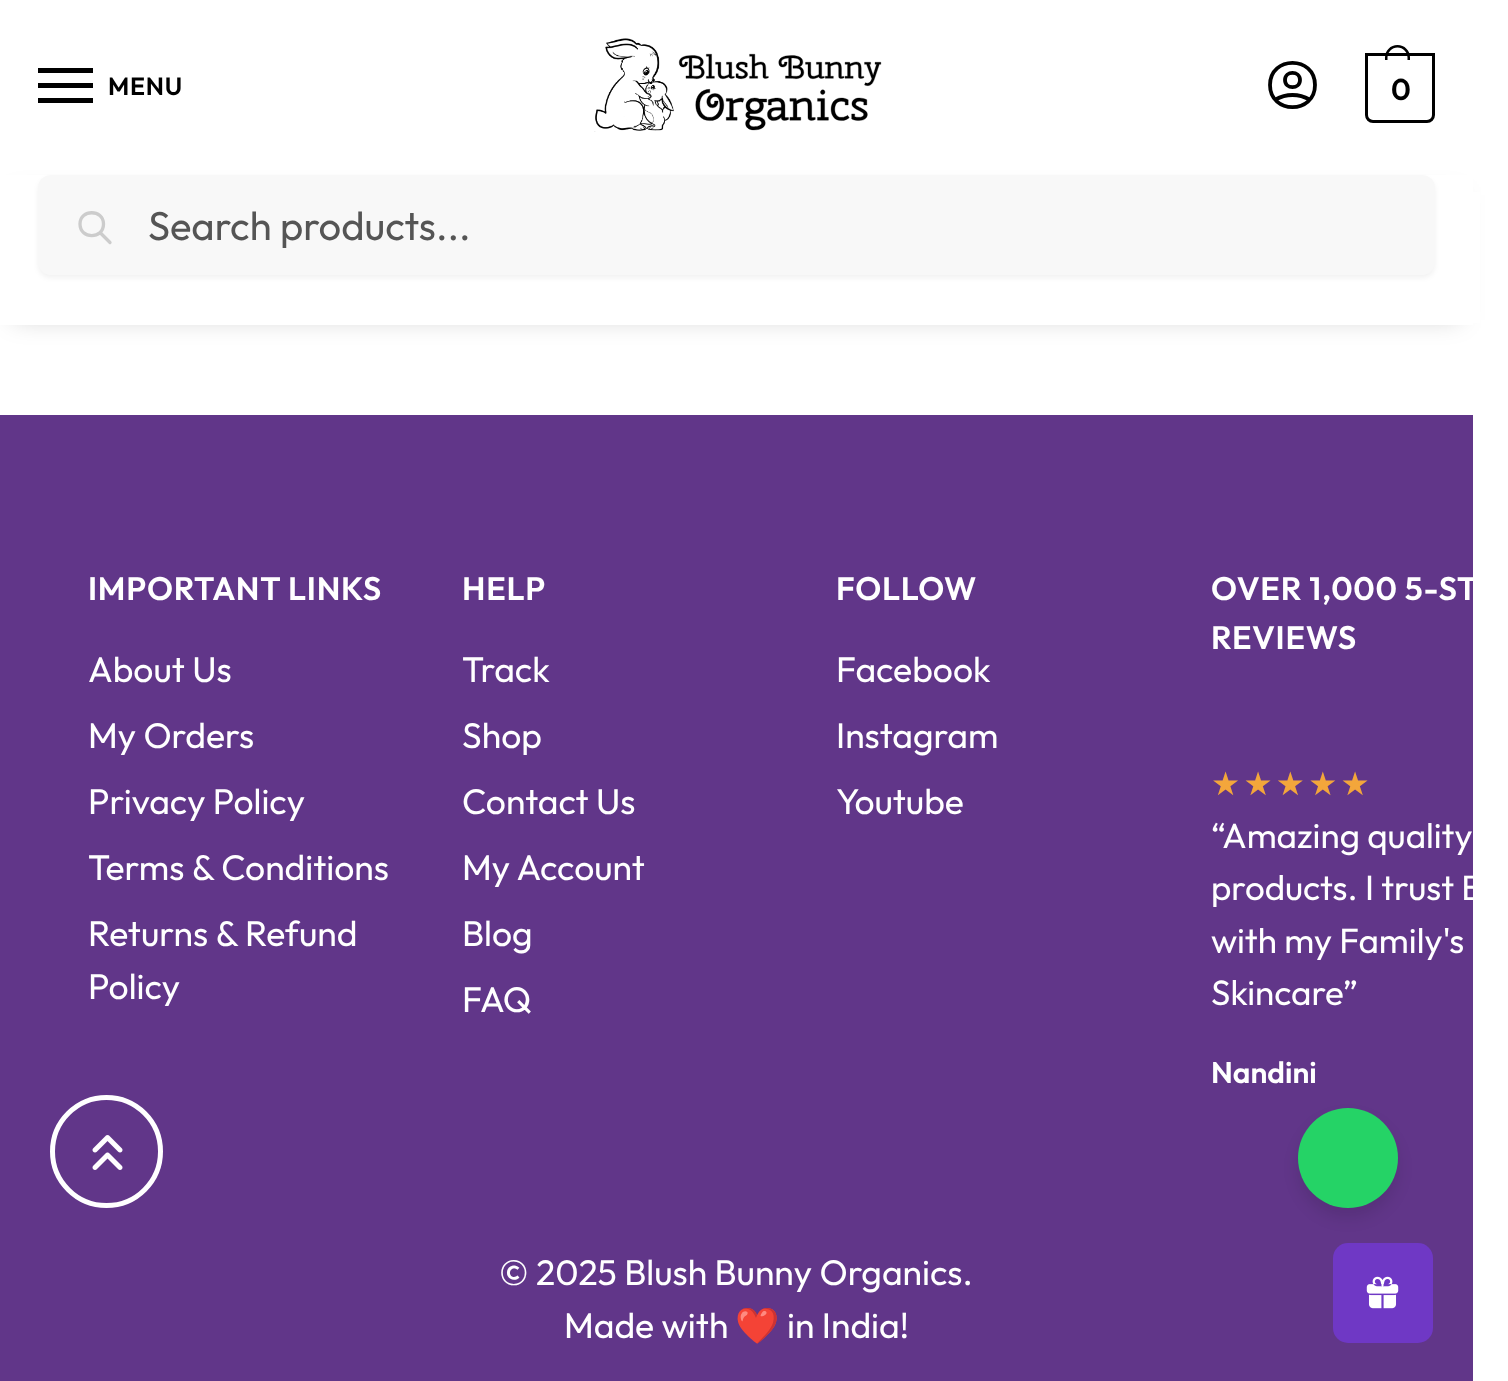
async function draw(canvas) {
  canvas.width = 1508
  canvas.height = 1381
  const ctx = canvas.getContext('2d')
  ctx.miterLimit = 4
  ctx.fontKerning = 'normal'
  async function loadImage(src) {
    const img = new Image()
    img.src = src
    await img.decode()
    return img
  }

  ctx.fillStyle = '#fff'
  ctx.fillRect(0, 0, 1508, 1381)
  ctx.fillStyle = '#000'
  ctx.fillRect(38, 68, 55, 5)
  ctx.fillRect(38, 83, 55, 5)
  ctx.letterSpacing = '0.75px'
  ctx.font = '600 25px Outfit'
  ctx.fillText('MENU', 108, 95)
  ctx.fillRect(38, 98, 55, 5)
  ctx.drawImage(await loadImage('image0.png'), 594, 38, 288, 94)
  ctx.beginPath()
  ctx.moveTo(1275.5, 99.5)
  ctx.bezierCurveTo(1286, 93.5, 1299, 93.5, 1309.5, 99.5)
  ctx.moveTo(1300, 80)
  ctx.bezierCurveTo(1300, 89.5, 1285, 89.5, 1285, 80)
  ctx.bezierCurveTo(1285, 70.5, 1300, 70.5, 1300, 80)
  ctx.closePath()
  ctx.moveTo(1315, 85)
  ctx.bezierCurveTo(1315, 114.5, 1270, 114.5, 1270, 85)
  ctx.bezierCurveTo(1270, 55.5, 1315, 55.5, 1315, 85)
  ctx.closePath()
  ctx.strokeStyle = '#000'
  ctx.lineWidth = 3.8
  ctx.lineCap = 'round'
  ctx.lineJoin = 'round'
  ctx.stroke()
  ctx.beginPath()
  ctx.roundRect(1366.5, 54.5, 67, 67, [0, 0, 6.5, 6.5])
  ctx.lineWidth = 3
  ctx.lineJoin = 'miter'
  ctx.stroke()
  ctx.beginPath()
  ctx.moveTo(1397.5, 45)
  ctx.bezierCurveTo(1404.5, 45, 1410, 50.5, 1410, 57.5)
  ctx.lineTo(1410, 60)
  ctx.lineTo(1385, 60)
  ctx.lineTo(1385, 57.5)
  ctx.bezierCurveTo(1385, 50.5, 1390.5, 45, 1397.5, 45)
  ctx.closePath()
  ctx.moveTo(1397.5, 47.5)
  ctx.bezierCurveTo(1403, 47.5, 1407.5, 52, 1407.5, 57.5)
  ctx.lineTo(1407.5, 60)
  ctx.lineTo(1387.5, 60)
  ctx.lineTo(1387.5, 57.5)
  ctx.bezierCurveTo(1387.5, 52, 1392, 47.5, 1397.5, 47.5)
  ctx.closePath()
  ctx.fill('evenodd')
  ctx.letterSpacing = '-2px'
  ctx.font = '600 30px Outfit'
  ctx.fillText('0', 1391, 100)
  ctx.fillStyle = '#0000002e'
  ctx.filter = 'blur(12.5px)'
  ctx.beginPath()
  ctx.rect(13, 195, 1447, 125)
  ctx.fill()
  ctx.filter = 'none'
  ctx.fillStyle = '#fff'
  ctx.fillRect(0, 175, 1473, 150)
  ctx.fillStyle = '#0000000d'
  ctx.filter = 'blur(2.5px)'
  ctx.beginPath()
  ctx.roundRect(38, 178, 1397, 100, 13)
  ctx.fill()
  ctx.filter = 'none'
  ctx.fillStyle = '#f8f8f8'
  ctx.beginPath()
  ctx.roundRect(38, 175, 1397, 100, 13)
  ctx.fill()
  ctx.beginPath()
  ctx.moveTo(110, 242.5)
  ctx.lineTo(100, 232.5)
  ctx.moveTo(103.5, 224)
  ctx.bezierCurveTo(103.5, 239.5, 80, 239.5, 80, 224)
  ctx.bezierCurveTo(80, 209, 103.5, 209, 103.5, 224)
  ctx.closePath()
  ctx.strokeStyle = '#ccc'
  ctx.lineWidth = 3.3
  ctx.lineJoin = 'round'
  ctx.stroke()
  ctx.letterSpacing = '0px'
  ctx.font = '40px Outfit'
  ctx.fillStyle = '#555'
  ctx.fillText('Search products...', 148, 240)
  ctx.fillStyle = '#fff'
  ctx.fillRect(1473, 192, 7, 131)
  ctx.fillStyle = '#613689'
  ctx.fillRect(0, 415, 1473, 966)
  ctx.letterSpacing = '0.75px'
  ctx.font = '600 32.5px Outfit'
  ctx.fillStyle = '#fff'
  ctx.fillText('IMPORTANT LINKS', 88, 600)
  ctx.letterSpacing = '0px'
  ctx.font = '35.5px Outfit'
  ctx.fillText('About Us', 88, 682)
  ctx.fillText('My Orders', 88, 748)
  ctx.fillText('Privacy Policy', 88, 814)
  ctx.fillText('Terms & Conditions', 88, 880)
  ctx.fillText('Returns & Refund', 88, 946)
  ctx.fillText('Policy', 88, 999)
  ctx.letterSpacing = '0.75px'
  ctx.font = '600 32.5px Outfit'
  ctx.fillText('HELP', 462, 600)
  ctx.letterSpacing = '0px'
  ctx.font = '35.5px Outfit'
  ctx.fillText('Track', 462, 682)
  ctx.fillText('Shop', 462, 748)
  ctx.fillText('Contact Us', 462, 814)
  ctx.fillText('My Account', 462, 880)
  ctx.fillText('Blog', 462, 946)
  ctx.fillText('FAQ', 462, 1012)
  ctx.letterSpacing = '0.75px'
  ctx.font = '600 32.5px Outfit'
  ctx.fillText('FOLLOW', 836, 600)
  ctx.letterSpacing = '0px'
  ctx.font = '35.5px Outfit'
  ctx.fillText('Facebook', 836, 682)
  ctx.fillText('Instagram', 836, 748)
  ctx.fillText('Youtube', 836, 814)
  ctx.letterSpacing = '0.75px'
  ctx.font = '600 32.5px Outfit'
  ctx.fillText('OVER 1,000 5-ST', 1211, 600)
  ctx.fillText('REVIEWS', 1211, 649)
  ctx.letterSpacing = '3.25px'
  ctx.font = '32.5px DejaVu Sans'
  ctx.fillStyle = '#f3a63b'
  ctx.fillText('★★★★★', 1211, 795)
  ctx.letterSpacing = '0px'
  ctx.font = '35px Outfit'
  ctx.fillStyle = '#fff'
  ctx.fillText('“Amazing quality', 1211, 848)
  ctx.fillText('products. I trust B', 1211, 900)
  ctx.fillText('with my Family\'s', 1211, 953)
  ctx.fillText('Skincare”', 1211, 1005)
  ctx.font = '600 30px Outfit'
  ctx.fillText('Nandini', 1211, 1083)
  ctx.font = '35.5px Outfit'
  ctx.fillText('© 2025 Blush Bunny Organics.', 499, 1285)
  ctx.fillText('Made with', 564, 1338)
  ctx.font = '35.5px Noto Color Emoji'
  ctx.fillText('❤️', 735, 1338)
  ctx.font = '35.5px Outfit'
  ctx.fillText('in India!', 787, 1338)
  ctx.beginPath()
  ctx.arc(106.5, 1151.5, 54, 0, 2 * Math.PI)
  ctx.strokeStyle = '#fff'
  ctx.lineWidth = 5
  ctx.stroke()
  ctx.drawImage(await loadImage('image1.png'), 92, 1135, 31, 35)
  ctx.fillStyle = '#0000001a'
  ctx.filter = 'blur(7.5px)'
  ctx.beginPath()
  ctx.roundRect(1298, 1118, 100, 100, 50)
  ctx.fill()
  ctx.filter = 'none'
  ctx.fillStyle = '#25d366'
  ctx.beginPath()
  ctx.arc(1348, 1158, 50, 0, 2 * Math.PI)
  ctx.fill()
  ctx.fillStyle = '#6f38c5'
  ctx.beginPath()
  ctx.roundRect(1333, 1243, 100, 100, 15)
  ctx.fill()
  ctx.drawImage(await loadImage('image2.png'), 1366, 1276, 33, 33)
}

draw(document.querySelector('canvas'))
